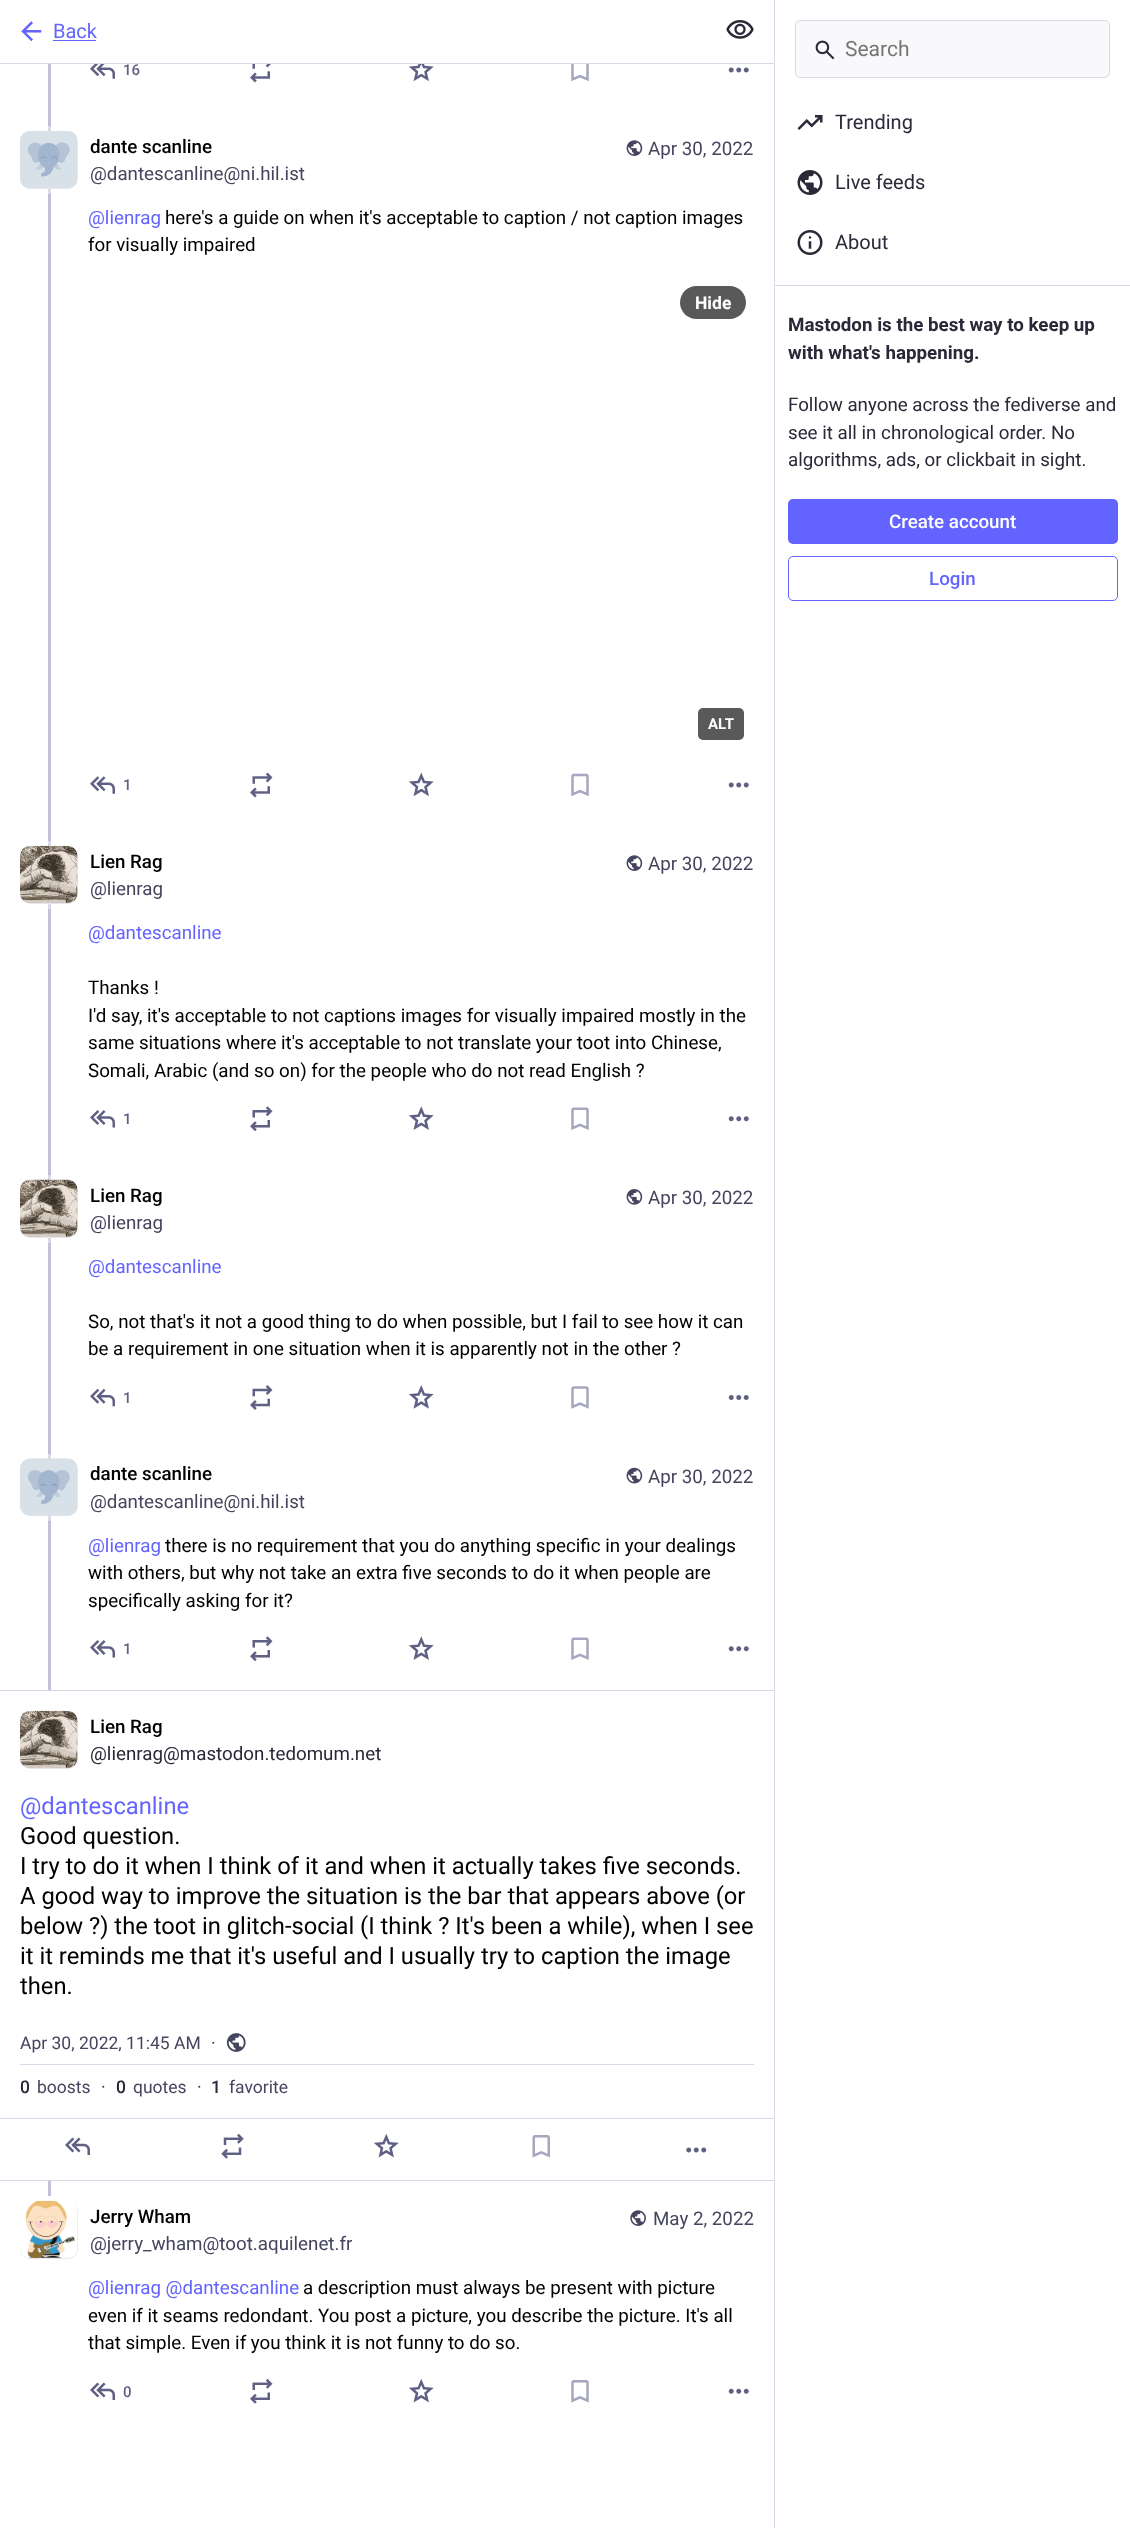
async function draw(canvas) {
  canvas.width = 1130
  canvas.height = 2528
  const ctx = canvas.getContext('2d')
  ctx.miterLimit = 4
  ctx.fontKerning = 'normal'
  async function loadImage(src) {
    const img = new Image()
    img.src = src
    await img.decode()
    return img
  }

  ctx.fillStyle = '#fff'
  ctx.fillRect(0, 0, 1130, 2528)
  ctx.fillStyle = '#d9d9e8'
  ctx.fillRect(0, 63, 774, 1)
  ctx.drawImage(await loadImage('image0.png'), 21, 21, 21, 21)
  ctx.font = '20px Roboto'
  ctx.fillStyle = '#6364ff'
  ctx.fillText('Back', 53, 38)
  ctx.fillRect(53, 40, 43, 1)
  ctx.drawImage(await loadImage('image1.png'), 726, 20, 28, 19)
  ctx.fillStyle = '#c6bfd9'
  ctx.fillRect(48, 64, 3, 1626)
  ctx.drawImage(await loadImage('image2.png'), 90, 64, 25, 15)
  ctx.font = '500 15px Roboto'
  ctx.fillStyle = '#606085'
  ctx.fillText('16', 123, 75)
  ctx.drawImage(await loadImage('image3.png'), 250, 64, 21, 19)
  ctx.drawImage(await loadImage('image4.png'), 408, 64, 26, 18)
  ctx.drawImage(await loadImage('image5.png'), 571, 64, 18, 18)
  ctx.drawImage(await loadImage('image6.png'), 728, 67, 21, 6)
  ctx.fillStyle = '#ddd9e8'
  ctx.fillRect(48, 126, 3, 68)
  ctx.fillStyle = '#e8e6f0'
  ctx.beginPath()
  ctx.roundRect(20, 131, 58, 58, 10)
  ctx.fill()
  ctx.drawImage(await loadImage('image7.png'), 20, 131, 57, 57)
  ctx.font = '500 18.75px Roboto'
  ctx.fillStyle = '#000'
  ctx.fillText('dante scanline', 90, 153)
  ctx.font = '18.75px Roboto'
  ctx.fillStyle = '#45455f'
  ctx.fillText('@dantescanline@ni.hil.ist', 90, 180)
  ctx.drawImage(await loadImage('image8.png'), 626, 140, 17, 16)
  ctx.fillText('Apr 30, 2022', 648, 155)
  ctx.fillStyle = '#6364ff'
  ctx.fillText('@lienrag', 88, 224)
  ctx.fillStyle = '#000'
  ctx.fillText('here\'s a guide on when it\'s acceptable to caption / not caption images', 165, 224)
  ctx.fillText('for visually impaired', 88, 251)
  ctx.fillStyle = '#595959'
  ctx.beginPath()
  ctx.roundRect(680, 286, 66, 33, 16.5)
  ctx.fill()
  ctx.font = 'bold 17.5px Roboto'
  ctx.fillStyle = '#fff'
  ctx.fillText('Hide', 695, 309)
  ctx.fillStyle = '#595959'
  ctx.beginPath()
  ctx.roundRect(698, 708, 46, 32, 5)
  ctx.fill()
  ctx.font = 'bold 15px Roboto'
  ctx.fillStyle = '#fff'
  ctx.fillText('ALT', 708, 729)
  ctx.drawImage(await loadImage('image9.png'), 90, 776, 25, 18)
  ctx.font = '500 15px Roboto'
  ctx.fillStyle = '#606085'
  ctx.fillText('1', 123, 790)
  ctx.drawImage(await loadImage('image10.png'), 250, 772, 23, 26)
  ctx.drawImage(await loadImage('image11.png'), 408, 772, 26, 25)
  ctx.drawImage(await loadImage('image12.png'), 571, 773, 18, 24)
  ctx.drawImage(await loadImage('image6.png'), 728, 782, 21, 6)
  ctx.fillStyle = '#ddd9e8'
  ctx.fillRect(48, 841, 3, 68)
  ctx.fillStyle = '#e8e6f0'
  ctx.beginPath()
  ctx.roundRect(20, 846, 58, 58, 10)
  ctx.fill()
  ctx.drawImage(await loadImage('image13.png'), 20, 845, 58, 59)
  ctx.font = '500 18.75px Roboto'
  ctx.fillStyle = '#000'
  ctx.fillText('Lien Rag', 90, 868)
  ctx.font = '18.75px Roboto'
  ctx.fillStyle = '#45455f'
  ctx.fillText('@lienrag', 90, 895)
  ctx.drawImage(await loadImage('image8.png'), 626, 855, 17, 16)
  ctx.fillText('Apr 30, 2022', 648, 870)
  ctx.fillStyle = '#6364ff'
  ctx.fillText('@dantescanline', 88, 939)
  ctx.fillStyle = '#000'
  ctx.fillText('Thanks !', 88, 994)
  ctx.fillText('I\'d say, it\'s acceptable to not captions images for visually impaired mostly in the', 88, 1022)
  ctx.fillText('same situations where it\'s acceptable to not translate your toot into Chinese,', 88, 1049)
  ctx.fillText('Somali, Arabic (and so on) for the people who do not read English ?', 88, 1077)
  ctx.drawImage(await loadImage('image14.png'), 90, 1110, 25, 18)
  ctx.font = '500 15px Roboto'
  ctx.fillStyle = '#606085'
  ctx.fillText('1', 123, 1124)
  ctx.drawImage(await loadImage('image15.png'), 250, 1106, 23, 26)
  ctx.drawImage(await loadImage('image16.png'), 408, 1106, 26, 24)
  ctx.drawImage(await loadImage('image17.png'), 571, 1107, 18, 23)
  ctx.drawImage(await loadImage('image18.png'), 728, 1116, 21, 6)
  ctx.fillStyle = '#ddd9e8'
  ctx.fillRect(48, 1175, 3, 68)
  ctx.fillStyle = '#e8e6f0'
  ctx.beginPath()
  ctx.roundRect(20, 1180, 58, 58, 10)
  ctx.fill()
  ctx.drawImage(await loadImage('image19.png'), 20, 1179, 58, 58)
  ctx.font = '500 18.75px Roboto'
  ctx.fillStyle = '#000'
  ctx.fillText('Lien Rag', 90, 1202)
  ctx.font = '18.75px Roboto'
  ctx.fillStyle = '#45455f'
  ctx.fillText('@lienrag', 90, 1229)
  ctx.drawImage(await loadImage('image20.png'), 626, 1189, 17, 16)
  ctx.fillText('Apr 30, 2022', 648, 1204)
  ctx.fillStyle = '#6364ff'
  ctx.fillText('@dantescanline', 88, 1273)
  ctx.fillStyle = '#000'
  ctx.fillText('So, not that\'s it not a good thing to do when possible, but I fail to see how it can', 88, 1328)
  ctx.fillText('be a requirement in one situation when it is apparently not in the other ?', 88, 1355)
  ctx.drawImage(await loadImage('image21.png'), 90, 1388, 25, 19)
  ctx.font = '500 15px Roboto'
  ctx.fillStyle = '#606085'
  ctx.fillText('1', 123, 1403)
  ctx.drawImage(await loadImage('image22.png'), 250, 1385, 23, 25)
  ctx.drawImage(await loadImage('image23.png'), 408, 1385, 26, 24)
  ctx.drawImage(await loadImage('image24.png'), 571, 1386, 18, 23)
  ctx.drawImage(await loadImage('image25.png'), 728, 1395, 21, 5)
  ctx.fillStyle = '#ddd9e8'
  ctx.fillRect(48, 1454, 3, 67)
  ctx.fillStyle = '#e8e6f0'
  ctx.beginPath()
  ctx.roundRect(20, 1459, 58, 57, 10)
  ctx.fill()
  ctx.drawImage(await loadImage('image26.png'), 20, 1458, 58, 58)
  ctx.font = '500 18.75px Roboto'
  ctx.fillStyle = '#000'
  ctx.fillText('dante scanline', 90, 1480)
  ctx.font = '18.75px Roboto'
  ctx.fillStyle = '#45455f'
  ctx.fillText('@dantescanline@ni.hil.ist', 90, 1508)
  ctx.drawImage(await loadImage('image27.png'), 626, 1467, 17, 17)
  ctx.fillText('Apr 30, 2022', 648, 1483)
  ctx.fillStyle = '#6364ff'
  ctx.fillText('@lienrag', 88, 1552)
  ctx.fillStyle = '#000'
  ctx.fillText('there is no requirement that you do anything specific in your dealings', 165, 1552)
  ctx.fillText('with others, but why not take an extra five seconds to do it when people are', 88, 1579)
  ctx.fillText('specifically asking for it?', 88, 1607)
  ctx.drawImage(await loadImage('image14.png'), 90, 1640, 25, 18)
  ctx.font = '500 15px Roboto'
  ctx.fillStyle = '#606085'
  ctx.fillText('1', 123, 1654)
  ctx.drawImage(await loadImage('image15.png'), 250, 1636, 23, 26)
  ctx.drawImage(await loadImage('image16.png'), 408, 1636, 26, 24)
  ctx.drawImage(await loadImage('image17.png'), 571, 1637, 18, 23)
  ctx.drawImage(await loadImage('image18.png'), 728, 1646, 21, 6)
  ctx.fillStyle = '#d9d9e8'
  ctx.fillRect(0, 1690, 774, 1)
  ctx.fillStyle = '#e8e6f0'
  ctx.beginPath()
  ctx.roundRect(20, 1711, 58, 58, 10)
  ctx.fill()
  ctx.drawImage(await loadImage('image28.png'), 20, 1710, 58, 59)
  ctx.font = '500 18.75px Roboto'
  ctx.fillStyle = '#000'
  ctx.fillText('Lien Rag', 90, 1733)
  ctx.font = '18.75px Roboto'
  ctx.fillStyle = '#292938'
  ctx.fillText('@lienrag@mastodon.tedomum.net', 90, 1760)
  ctx.font = '23.75px Roboto'
  ctx.fillStyle = '#6364ff'
  ctx.fillText('@dantescanline', 20, 1814)
  ctx.fillStyle = '#000'
  ctx.fillText('Good question.', 20, 1844)
  ctx.fillText('I try to do it when I think of it and when it actually takes five seconds.', 20, 1874)
  ctx.fillText('A good way to improve the situation is the bar that appears above (or', 20, 1904)
  ctx.fillText('below ?) the toot in glitch-social (I think ? It\'s been a while), when I see', 20, 1934)
  ctx.fillText('it it reminds me that it\'s useful and I usually try to caption the image', 20, 1964)
  ctx.fillText('then.', 20, 1994)
  ctx.fillStyle = '#d9d9e8'
  ctx.fillRect(20, 2064, 734, 1)
  ctx.font = '17.5px Roboto'
  ctx.fillStyle = '#45455f'
  ctx.fillText('Apr 30, 2022, 11:45 AM', 20, 2049)
  ctx.fillText('·', 211, 2049)
  ctx.drawImage(await loadImage('image29.png'), 226, 2033, 20, 19)
  ctx.font = '500 17.5px Roboto'
  ctx.fillStyle = '#292938'
  ctx.fillText('0', 20, 2093)
  ctx.font = '17.5px Roboto'
  ctx.fillStyle = '#45455f'
  ctx.fillText('boosts', 37, 2093)
  ctx.fillText('·', 101, 2093)
  ctx.font = '500 17.5px Roboto'
  ctx.fillStyle = '#292938'
  ctx.fillText('0', 116, 2093)
  ctx.font = '17.5px Roboto'
  ctx.fillStyle = '#45455f'
  ctx.fillText('quotes', 133, 2093)
  ctx.fillText('·', 197, 2093)
  ctx.font = '500 17.5px Roboto'
  ctx.fillStyle = '#292938'
  ctx.fillText('1', 211, 2093)
  ctx.font = '17.5px Roboto'
  ctx.fillStyle = '#45455f'
  ctx.fillText('favorite', 229, 2093)
  ctx.fillStyle = '#d9d9e8'
  ctx.fillRect(0, 2118, 774, 1)
  ctx.fillRect(0, 2180, 774, 1)
  ctx.drawImage(await loadImage('image30.png'), 65, 2137, 25, 18)
  ctx.drawImage(await loadImage('image31.png'), 221, 2133, 23, 26)
  ctx.drawImage(await loadImage('image32.png'), 373, 2133, 26, 25)
  ctx.drawImage(await loadImage('image33.png'), 532, 2135, 18, 23)
  ctx.drawImage(await loadImage('image34.png'), 686, 2147, 21, 6)
  ctx.fillStyle = '#c6bfd9'
  ctx.fillRect(48, 2181, 3, 15)
  ctx.fillStyle = '#e8e6f0'
  ctx.beginPath()
  ctx.roundRect(20, 2201, 58, 58, 10)
  ctx.fill()
  ctx.drawImage(await loadImage('image35.png'), 20, 2200, 58, 59)
  ctx.font = '500 18.75px Roboto'
  ctx.fillStyle = '#000'
  ctx.fillText('Jerry Wham', 90, 2223)
  ctx.font = '18.75px Roboto'
  ctx.fillStyle = '#45455f'
  ctx.fillText('@jerry_wham@toot.aquilenet.fr', 90, 2250)
  ctx.drawImage(await loadImage('image36.png'), 630, 2210, 16, 16)
  ctx.fillText('May 2, 2022', 653, 2225)
  ctx.fillStyle = '#6364ff'
  ctx.fillText('@lienrag @dantescanline', 88, 2294)
  ctx.fillStyle = '#000'
  ctx.fillText('a description must always be present with picture', 303, 2294)
  ctx.fillText('even if it seams redondant. You post a picture, you describe the picture. It\'s all', 88, 2322)
  ctx.fillText('that simple. Even if you think it is not funny to do so.', 88, 2349)
  ctx.drawImage(await loadImage('image30.png'), 90, 2382, 25, 18)
  ctx.font = '500 15px Roboto'
  ctx.fillStyle = '#606085'
  ctx.fillText('0', 123, 2397)
  ctx.drawImage(await loadImage('image37.png'), 250, 2378, 23, 26)
  ctx.drawImage(await loadImage('image32.png'), 408, 2378, 26, 25)
  ctx.drawImage(await loadImage('image38.png'), 571, 2380, 18, 23)
  ctx.drawImage(await loadImage('image39.png'), 728, 2388, 21, 6)
  ctx.fillStyle = '#d9d9e8'
  ctx.fillRect(774, 0, 1, 2528)
  ctx.fillStyle = '#f9f9fb'
  ctx.beginPath()
  ctx.roundRect(795.5, 20.5, 314, 57, 4.5)
  ctx.fill()
  ctx.strokeStyle = '#d9d9e8'
  ctx.stroke()
  ctx.drawImage(await loadImage('image40.png'), 815, 40, 20, 20)
  ctx.font = '21px Roboto'
  ctx.fillStyle = '#757575'
  ctx.fillText('Search', 845, 56)
  ctx.drawImage(await loadImage('image41.png'), 797, 115, 26, 15)
  ctx.font = '20px Roboto'
  ctx.fillStyle = '#292938'
  ctx.fillText('Trending', 835, 129)
  ctx.drawImage(await loadImage('image42.png'), 797, 170, 26, 25)
  ctx.fillText('Live feeds', 835, 189)
  ctx.drawImage(await loadImage('image43.png'), 797, 230, 26, 25)
  ctx.fillText('About', 835, 249)
  ctx.fillStyle = '#d9d9e8'
  ctx.fillRect(775, 285, 355, 1)
  ctx.font = 'bold 18.75px Roboto'
  ctx.fillStyle = '#292938'
  ctx.fillText('Mastodon is the best way to keep up', 788, 331)
  ctx.fillText('with what\'s happening.', 788, 359)
  ctx.font = '18.75px Roboto'
  ctx.fillText('Follow anyone across the fediverse and', 788, 411)
  ctx.fillText('see it all in chronological order. No', 788, 439)
  ctx.fillText('algorithms, ads, or clickbait in sight.', 788, 466)
  ctx.fillStyle = '#6364ff'
  ctx.beginPath()
  ctx.roundRect(788, 499, 330, 45, 5)
  ctx.fill()
  ctx.font = '500 18.75px Roboto'
  ctx.fillStyle = '#fff'
  ctx.fillText('Create account', 889, 528)
  ctx.beginPath()
  ctx.roundRect(788.5, 556.5, 329, 44, 4.5)
  ctx.strokeStyle = '#6364ff'
  ctx.stroke()
  ctx.fillStyle = '#6364ff'
  ctx.fillText('Login', 929, 585)
}

draw(document.querySelector('canvas'))
